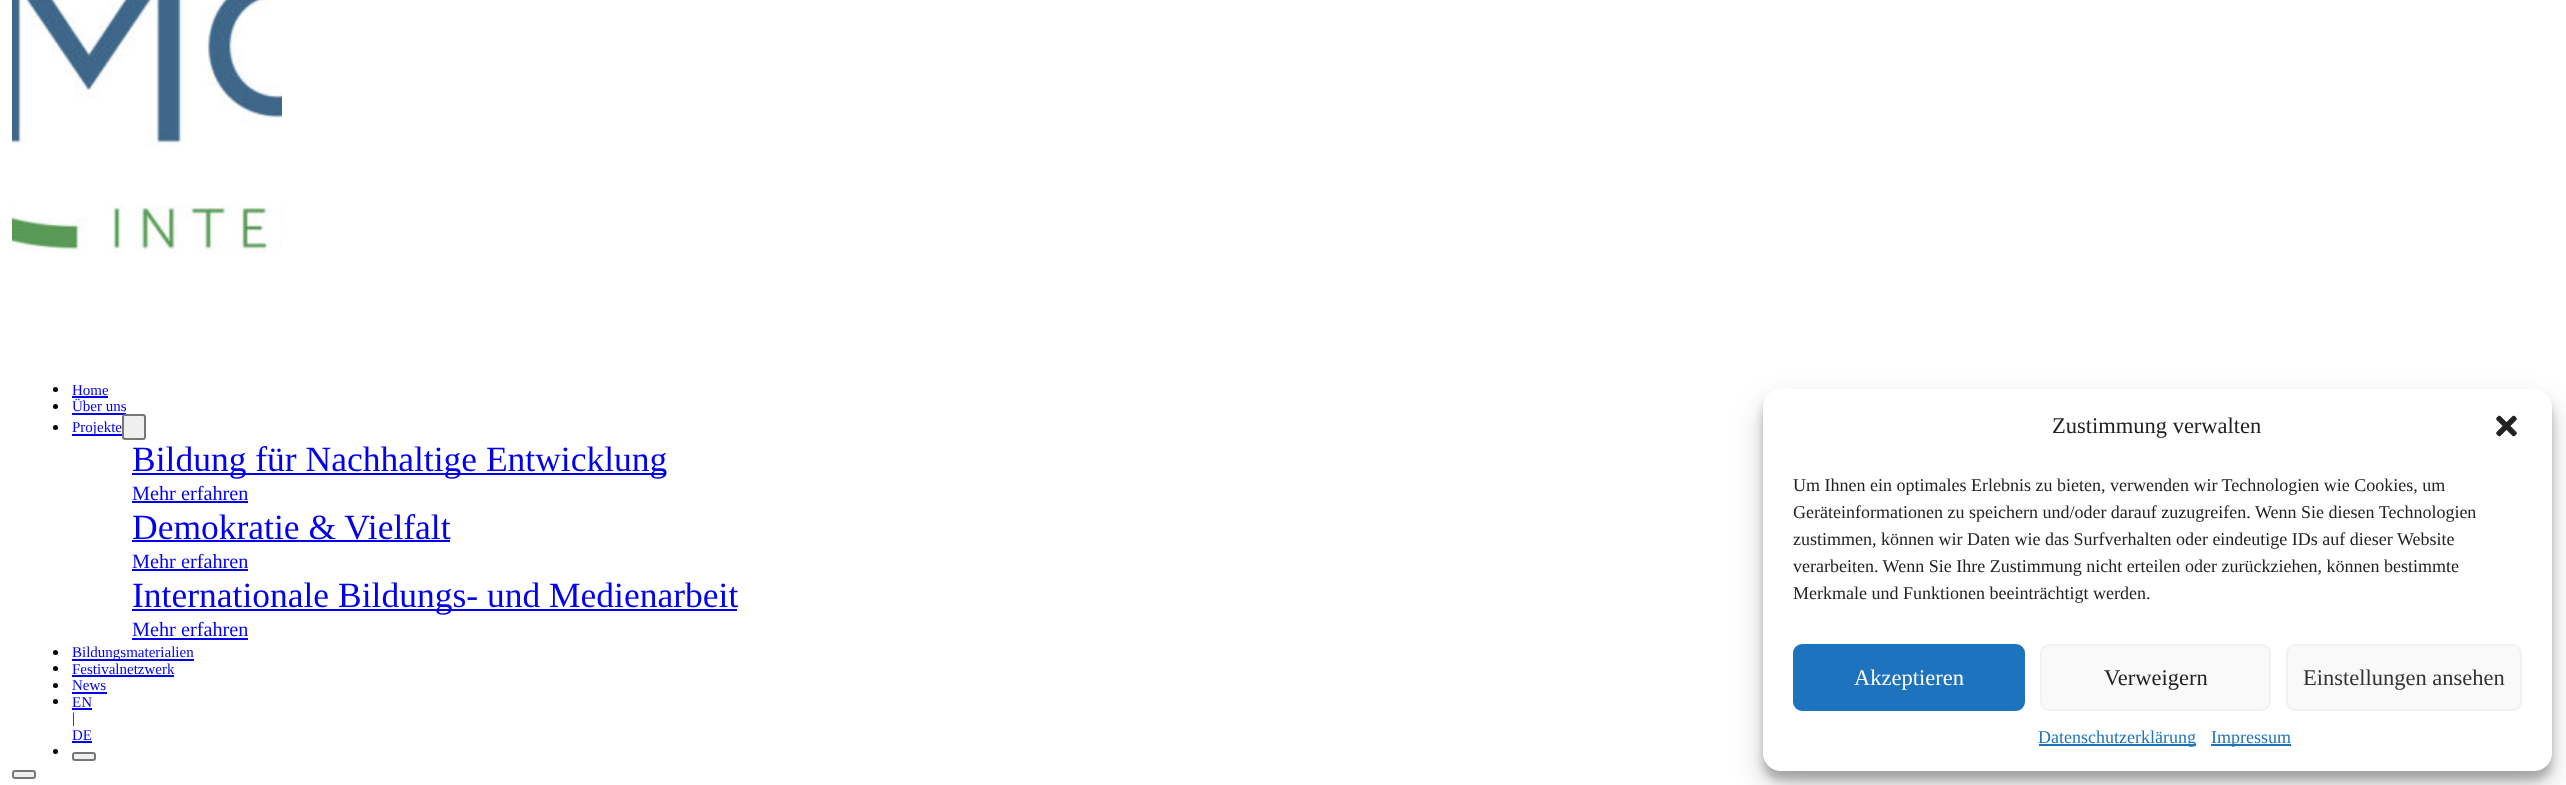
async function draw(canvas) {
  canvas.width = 2566
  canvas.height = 785
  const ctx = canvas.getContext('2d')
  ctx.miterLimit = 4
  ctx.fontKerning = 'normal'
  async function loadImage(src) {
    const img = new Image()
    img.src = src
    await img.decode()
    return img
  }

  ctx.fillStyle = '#fff'
  ctx.fillRect(0, 0, 2566, 785)
  ctx.drawImage(await loadImage('image0.png'), 12, 0, 270, 254)
  ctx.fillStyle = '#000'
  ctx.beginPath()
  ctx.arc(55.5, 389.5, 2.5, 0, 2 * Math.PI)
  ctx.fill()
  ctx.font = '15px Liberation Serif'
  ctx.fillStyle = '#00e'
  ctx.fillText('Home', 72, 395)
  ctx.fillRect(72, 396, 36, 2)
  ctx.fillStyle = '#000'
  ctx.beginPath()
  ctx.arc(55.5, 406.5, 2.5, 0, 2 * Math.PI)
  ctx.fill()
  ctx.fillStyle = '#00e'
  ctx.fillText('Über uns', 72, 411)
  ctx.fillRect(72, 413, 54, 2)
  ctx.fillStyle = '#000'
  ctx.beginPath()
  ctx.arc(55.5, 427.5, 2.5, 0, 2 * Math.PI)
  ctx.fill()
  ctx.fillStyle = '#00e'
  ctx.fillRect(72, 434, 50, 2)
  ctx.fillText('Projekte', 72, 432)
  ctx.fillStyle = '#efefef'
  ctx.beginPath()
  ctx.roundRect(123, 415, 22, 24, 2)
  ctx.fill()
  ctx.strokeStyle = '#767676'
  ctx.lineWidth = 2
  ctx.stroke()
  ctx.fillStyle = '#00e'
  ctx.fillRect(132, 473, 534, 2)
  ctx.font = '35.5px Liberation Serif'
  ctx.fillText('Bildung für Nachhaltige Entwicklung', 132, 471)
  ctx.font = '20.25px Liberation Serif'
  ctx.fillText('Mehr erfahren', 132, 500)
  ctx.fillRect(132, 501, 116, 2)
  ctx.font = '35.5px Liberation Serif'
  ctx.fillText('Demokratie & Vielfalt', 132, 539)
  ctx.fillRect(132, 540, 318, 2)
  ctx.font = '20.25px Liberation Serif'
  ctx.fillText('Mehr erfahren', 132, 568)
  ctx.fillRect(132, 569, 116, 2)
  ctx.fillRect(132, 609, 605, 2)
  ctx.font = '35.5px Liberation Serif'
  ctx.fillText('Internationale Bildungs- und Medienarbeit', 132, 607)
  ctx.font = '20.25px Liberation Serif'
  ctx.fillText('Mehr erfahren', 132, 636)
  ctx.fillRect(132, 638, 116, 2)
  ctx.fillStyle = '#000'
  ctx.beginPath()
  ctx.arc(55.5, 652.5, 2.5, 0, 2 * Math.PI)
  ctx.fill()
  ctx.fillStyle = '#00e'
  ctx.fillRect(72, 659, 122, 2)
  ctx.font = '15px Liberation Serif'
  ctx.fillText('Bildungsmaterialien', 72, 657)
  ctx.fillStyle = '#000'
  ctx.beginPath()
  ctx.arc(55.5, 668.5, 2.5, 0, 2 * Math.PI)
  ctx.fill()
  ctx.fillStyle = '#00e'
  ctx.fillText('Festivalnetzwerk', 72, 674)
  ctx.fillRect(72, 675, 102, 2)
  ctx.fillStyle = '#000'
  ctx.beginPath()
  ctx.arc(55.5, 685.5, 2.5, 0, 2 * Math.PI)
  ctx.fill()
  ctx.fillStyle = '#00e'
  ctx.fillText('News', 72, 690)
  ctx.fillRect(72, 692, 35, 2)
  ctx.fillStyle = '#000'
  ctx.beginPath()
  ctx.arc(55.5, 701.5, 2.5, 0, 2 * Math.PI)
  ctx.fill()
  ctx.fillStyle = '#00e'
  ctx.fillText('EN', 72, 707)
  ctx.fillRect(72, 708, 20, 2)
  ctx.fillStyle = '#000'
  ctx.fillText('|', 72, 723)
  ctx.fillStyle = '#00e'
  ctx.fillText('DE', 72, 740)
  ctx.fillRect(72, 741, 20, 2)
  ctx.fillStyle = '#000'
  ctx.beginPath()
  ctx.arc(55.5, 751.5, 2.5, 0, 2 * Math.PI)
  ctx.fill()
  ctx.fillStyle = '#efefef'
  ctx.beginPath()
  ctx.roundRect(73, 753, 22, 7, 2)
  ctx.fill()
  ctx.stroke()
  ctx.beginPath()
  ctx.roundRect(13, 771, 22, 7, 2)
  ctx.fill()
  ctx.stroke()
  ctx.fillStyle = '#0000003b'
  ctx.filter = 'blur(4.5px)'
  ctx.beginPath()
  ctx.roundRect(1763, 398, 789, 382, 18)
  ctx.fill()
  ctx.filter = 'none'
  ctx.fillStyle = '#00000030'
  ctx.filter = 'blur(15px)'
  ctx.beginPath()
  ctx.roundRect(1763, 404, 789, 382, 18)
  ctx.fill()
  ctx.filter = 'none'
  ctx.fillStyle = '#fff'
  ctx.beginPath()
  ctx.roundRect(1763, 389, 789, 382, 18)
  ctx.fill()
  ctx.font = '22.5px Liberation Serif'
  ctx.fillStyle = '#222'
  ctx.fillText('Zustimmung verwalten', 2052, 433)
  ctx.drawImage(await loadImage('image1.png'), 2496, 415, 21, 22)
  ctx.font = '18px Liberation Serif'
  ctx.fillText('Um Ihnen ein optimales Erlebnis zu bieten, verwenden wir Technologien wie Cookies, um', 1793, 491)
  ctx.fillText('Geräteinformationen zu speichern und/oder darauf zuzugreifen. Wenn Sie diesen Technologien', 1793, 518)
  ctx.fillText('zustimmen, können wir Daten wie das Surfverhalten oder eindeutige IDs auf dieser Website', 1793, 545)
  ctx.fillText('verarbeiten. Wenn Sie Ihre Zustimmung nicht erteilen oder zurückziehen, können bestimmte', 1793, 572)
  ctx.fillText('Merkmale und Funktionen beeinträchtigt werden.', 1793, 599)
  ctx.fillStyle = '#1e73be'
  ctx.beginPath()
  ctx.roundRect(1794, 645, 230, 65, 8)
  ctx.fill()
  ctx.strokeStyle = '#1e73be'
  ctx.stroke()
  ctx.font = '22.5px Liberation Serif'
  ctx.fillStyle = '#fff'
  ctx.fillText('Akzeptieren', 1854, 685)
  ctx.fillStyle = '#f9f9f9'
  ctx.beginPath()
  ctx.roundRect(2041, 645, 229, 65, 8)
  ctx.fill()
  ctx.strokeStyle = '#f2f2f2'
  ctx.stroke()
  ctx.fillStyle = '#222'
  ctx.fillText('Verweigern', 2104, 685)
  ctx.fillStyle = '#f9f9f9'
  ctx.beginPath()
  ctx.roundRect(2287, 645, 234, 65, 8)
  ctx.fill()
  ctx.stroke()
  ctx.fillStyle = '#333'
  ctx.fillText('Einstellungen ansehen', 2303, 685)
  ctx.fillStyle = '#1e73be'
  ctx.fillRect(2039, 744, 157, 2)
  ctx.font = '18px Liberation Serif'
  ctx.fillText('Datenschutzerklärung', 2038, 743)
  ctx.fillRect(2211, 744, 80, 2)
  ctx.fillText('Impressum', 2211, 743)
}

draw(document.querySelector('canvas'))
